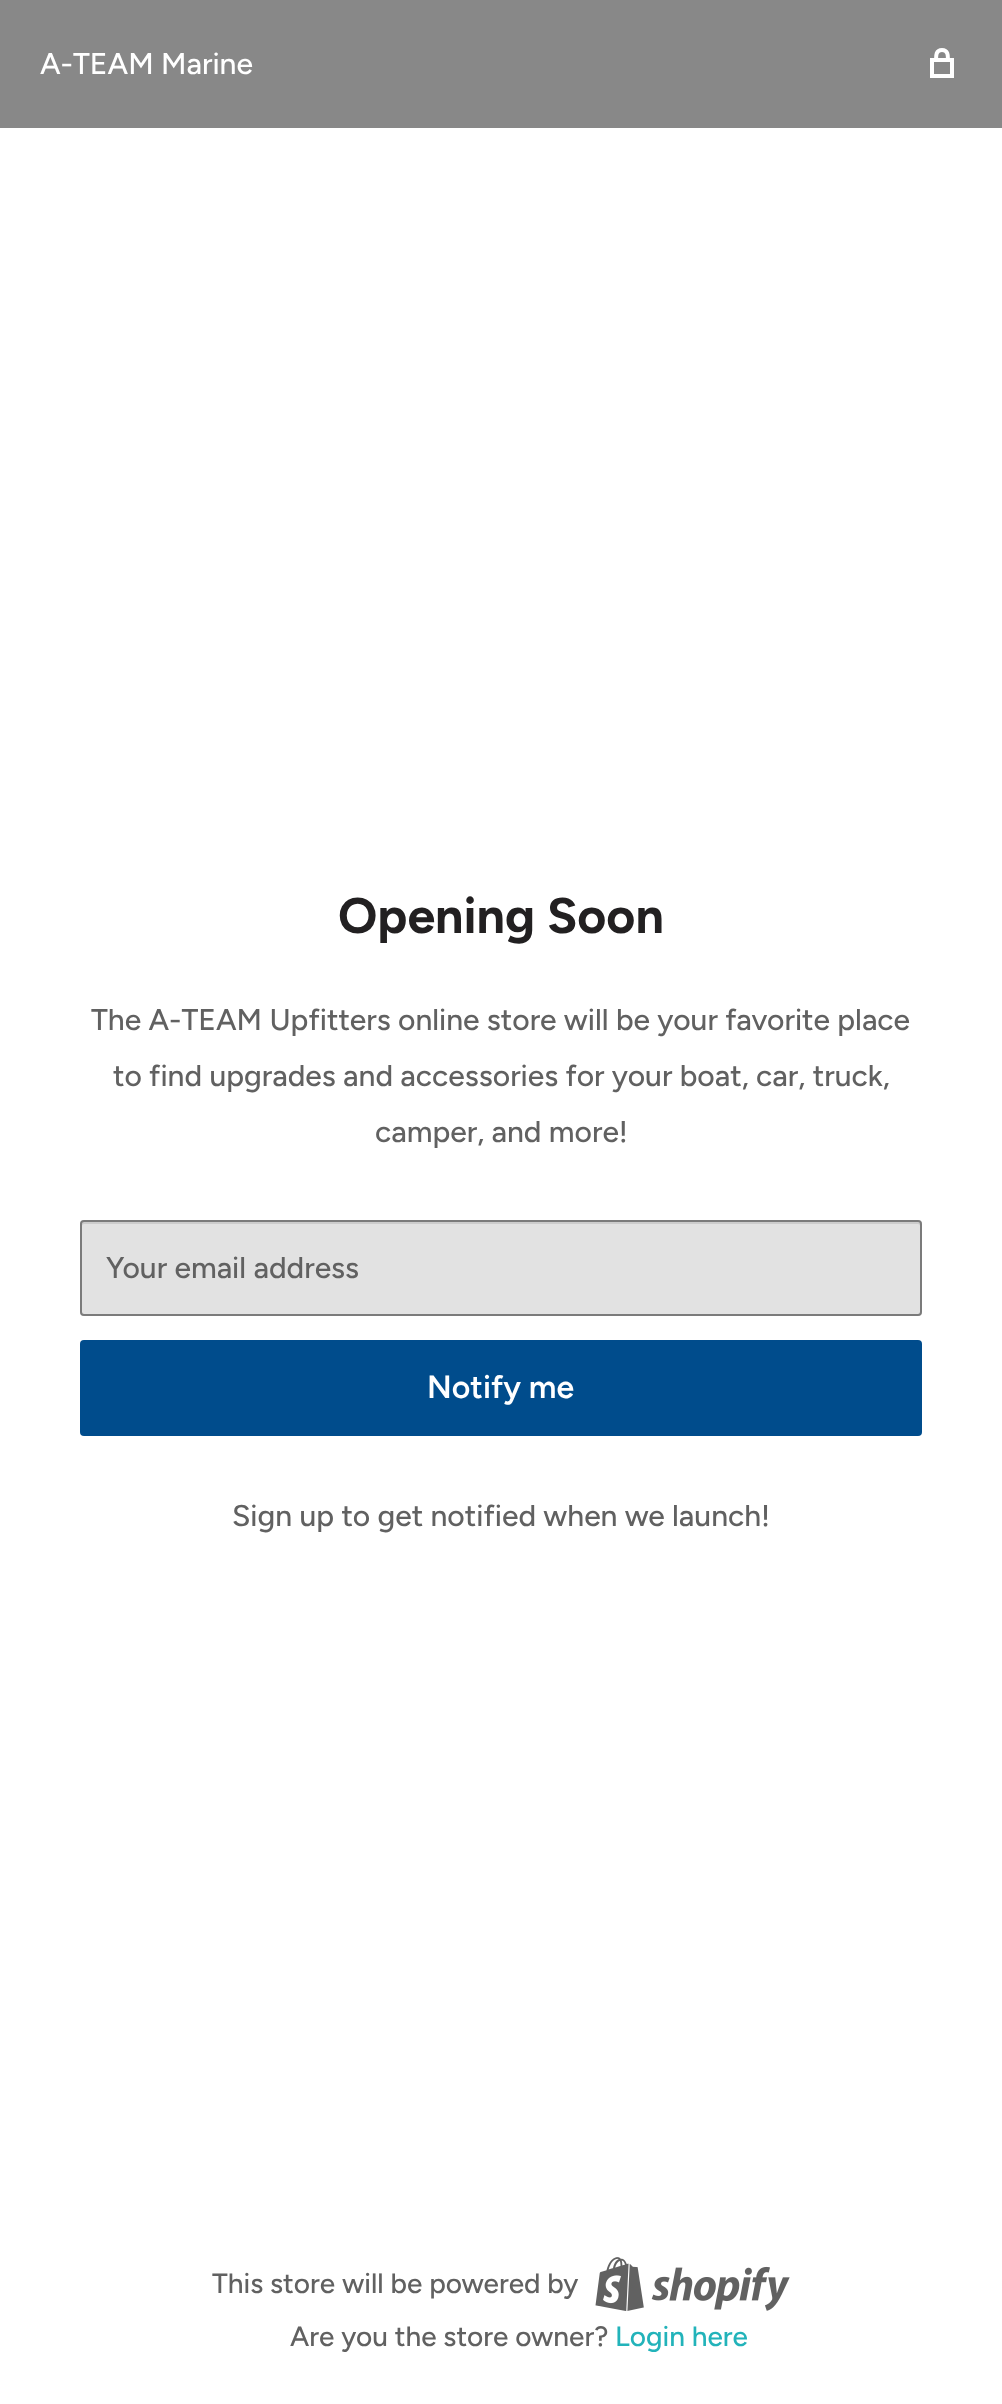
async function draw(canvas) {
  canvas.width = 1002
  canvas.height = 2404
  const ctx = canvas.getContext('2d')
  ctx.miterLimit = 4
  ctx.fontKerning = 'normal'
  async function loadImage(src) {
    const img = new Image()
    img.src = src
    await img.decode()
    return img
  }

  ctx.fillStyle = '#fff'
  ctx.fillRect(0, 0, 1002, 2404)
  ctx.fillStyle = '#888'
  ctx.fillRect(0, 0, 1002, 128)
  ctx.font = '500 30px Figtree'
  ctx.fillStyle = '#fff'
  ctx.fillText('A-TEAM Marine', 40, 74)
  ctx.beginPath()
  ctx.moveTo(942, 50)
  ctx.bezierCurveTo(936, 50, 936, 55.5, 936, 60)
  ctx.lineTo(948, 60)
  ctx.bezierCurveTo(948, 55.5, 948, 50, 942, 50)
  ctx.closePath()
  ctx.moveTo(932, 60)
  ctx.lineTo(952, 60)
  ctx.lineTo(952, 76)
  ctx.lineTo(932, 76)
  ctx.closePath()
  ctx.strokeStyle = '#fff'
  ctx.lineWidth = 4
  ctx.lineCap = 'square'
  ctx.stroke()
  ctx.font = 'bold 50px Figtree'
  ctx.fillStyle = '#222021'
  ctx.fillText('Opening Soon', 338, 933)
  ctx.font = '500 30px Figtree'
  ctx.fillStyle = '#616161'
  ctx.fillText('The A-TEAM Upfitters online store will be your favorite place', 91, 1030)
  ctx.fillText('to find upgrades and accessories for your boat, car, truck,', 113, 1086)
  ctx.fillText('camper, and more!', 375, 1142)
  ctx.fillStyle = '#e2e2e2'
  ctx.beginPath()
  ctx.roundRect(80, 1220, 842, 96, 4)
  ctx.fill()
  ctx.fillStyle = '#ccc'
  ctx.beginPath()
  ctx.moveTo(84, 1224)
  ctx.lineTo(918, 1224)
  ctx.bezierCurveTo(919, 1224, 920, 1225, 920, 1226)
  ctx.lineTo(920, 1223)
  ctx.lineTo(918, 1222)
  ctx.lineTo(83, 1222)
  ctx.bezierCurveTo(82, 1223, 82, 1225, 82, 1226)
  ctx.bezierCurveTo(82, 1225, 83, 1224, 84, 1224)
  ctx.closePath()
  ctx.fill()
  ctx.beginPath()
  ctx.roundRect(81, 1221, 840, 94, 3)
  ctx.strokeStyle = '#7b7b7b'
  ctx.lineWidth = 2
  ctx.stroke()
  ctx.fillStyle = '#616161'
  ctx.fillText('Your email address', 106, 1278)
  ctx.fillStyle = '#004c8c'
  ctx.beginPath()
  ctx.roundRect(80, 1340, 842, 96, 4)
  ctx.fill()
  ctx.font = '600 32px Figtree'
  ctx.fillStyle = '#fff'
  ctx.fillText('Notify me', 427, 1398)
  ctx.font = '500 30px Figtree'
  ctx.fillStyle = '#616161'
  ctx.fillText('Sign up to get notified when we launch!', 232, 1526)
  ctx.font = '500 28px Figtree'
  ctx.fillText('This store will be powered by', 212, 2293)
  ctx.drawImage(await loadImage('image0.png'), 595, 2257, 195, 54)
  ctx.fillText('Are you the store owner?', 290, 2346)
  ctx.fillStyle = '#22b3ba'
  ctx.fillText('Login here', 615, 2346)
}

draw(document.querySelector('canvas'))
